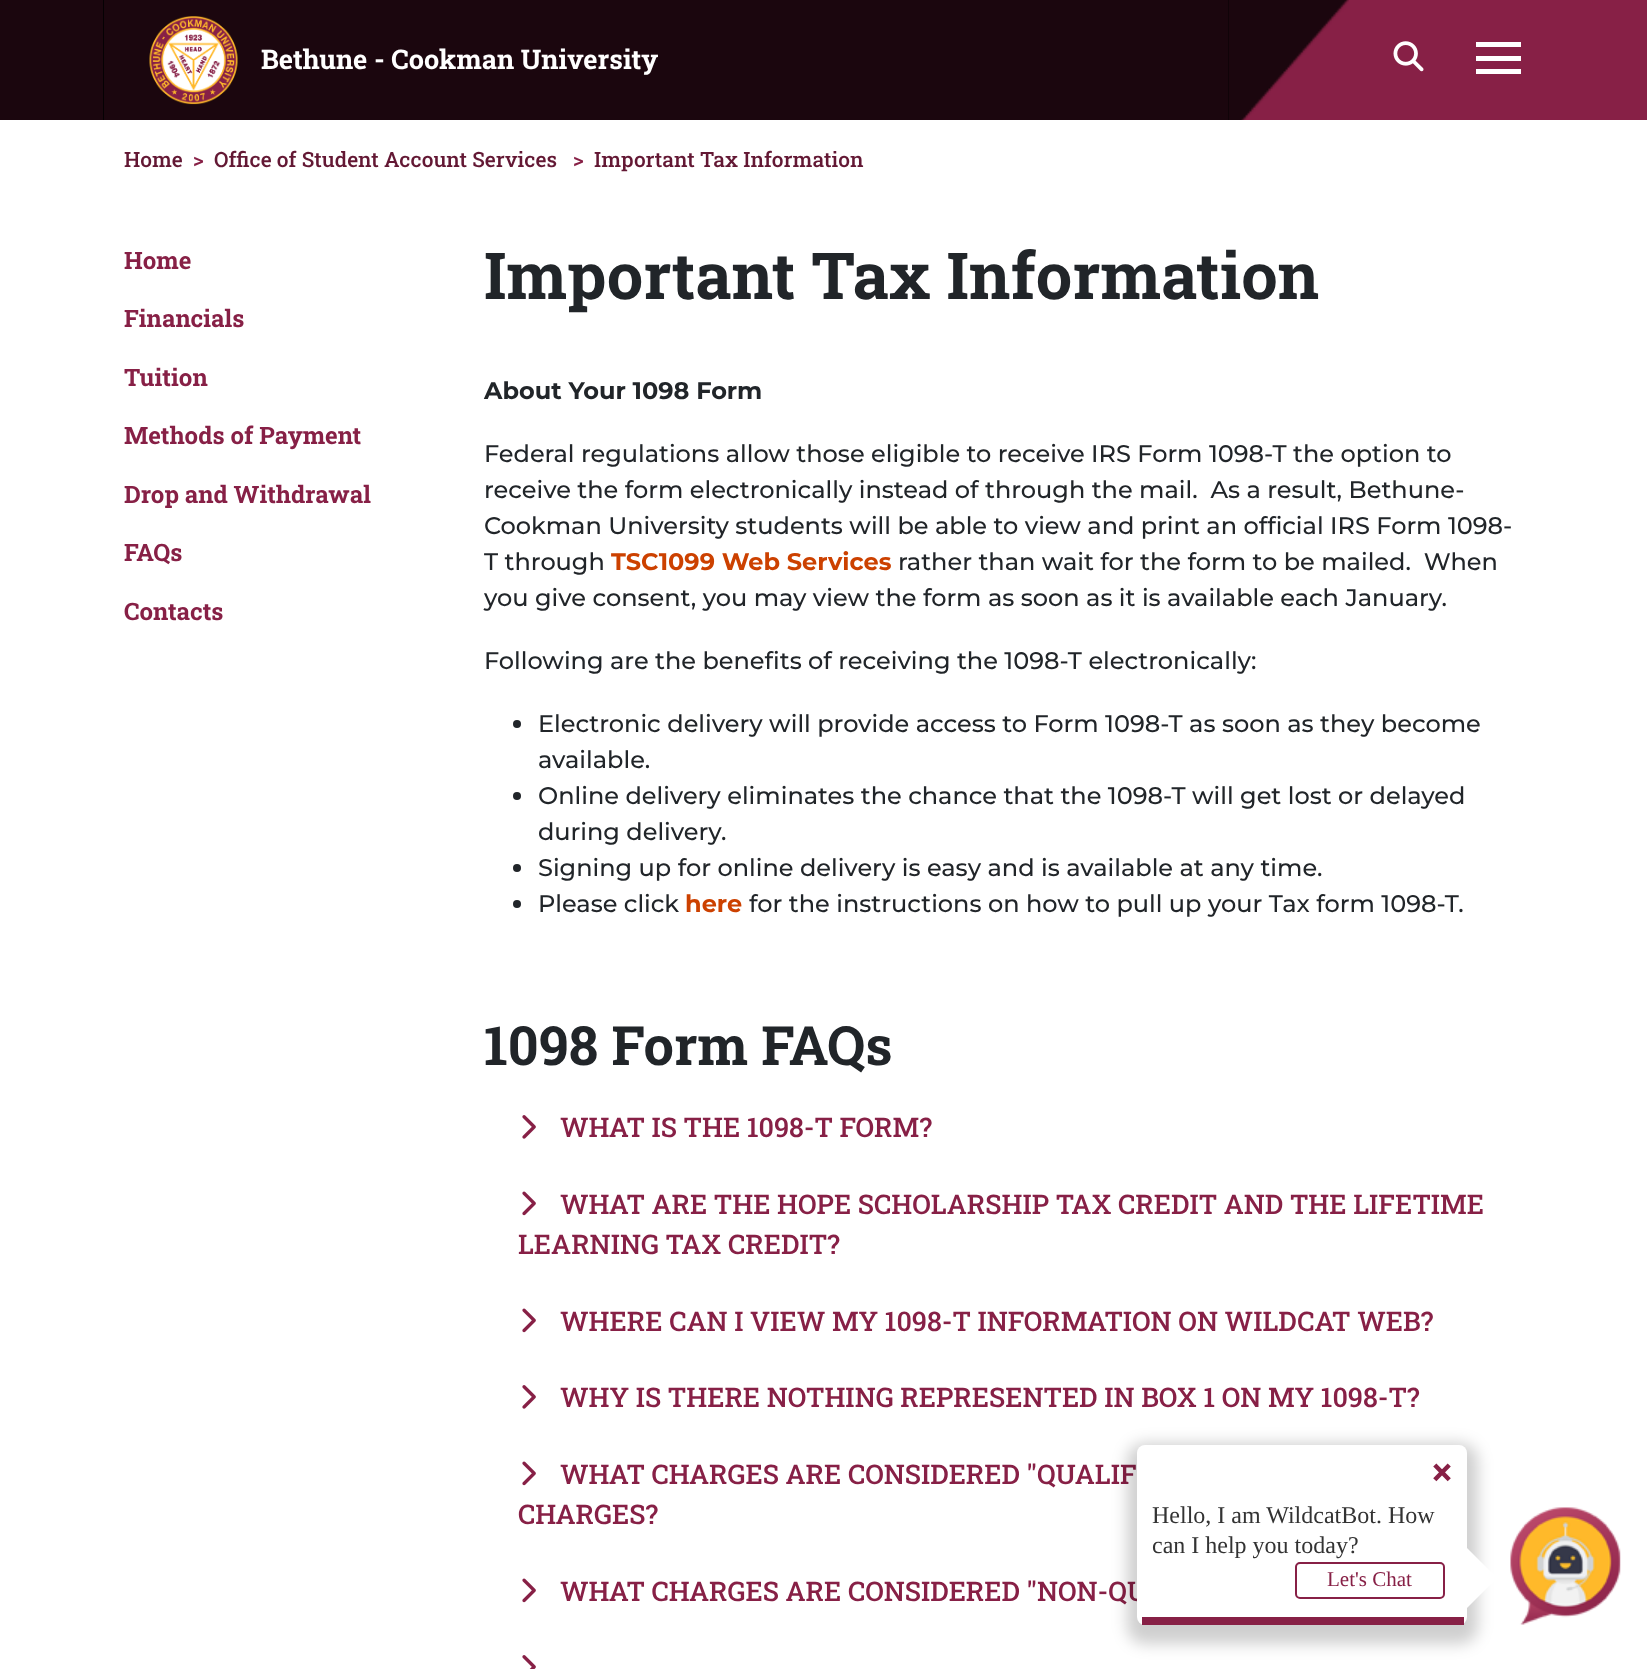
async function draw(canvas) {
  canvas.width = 1647
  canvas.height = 1669
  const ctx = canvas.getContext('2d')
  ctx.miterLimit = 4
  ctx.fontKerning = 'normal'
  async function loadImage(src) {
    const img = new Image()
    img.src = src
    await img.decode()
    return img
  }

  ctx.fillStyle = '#fff'
  ctx.fillRect(0, 0, 1647, 1669)
  ctx.fillStyle = '#872046'
  ctx.fillRect(1229, 0, 418, 120)
  ctx.fillStyle = '#1b060e'
  ctx.fillRect(104, 0, 1125, 120)
  ctx.fillRect(0, 0, 103, 120)
  ctx.fillStyle = '#050103'
  ctx.fillRect(103, 0, 1, 120)
  ctx.drawImage(await loadImage('image0.png'), 149, 16, 89, 89)
  ctx.font = 'bold 27px Roboto Slab'
  ctx.fillStyle = '#fff'
  ctx.fillText('Bethune - Cookman University', 261, 69)
  ctx.drawImage(await loadImage('image1.png'), 1228, 0, 121, 120)
  ctx.drawImage(await loadImage('image2.png'), 1393, 41, 31, 31)
  ctx.fillRect(1476, 42, 45, 5)
  ctx.fillRect(1476, 56, 45, 5)
  ctx.fillRect(1476, 69, 45, 5)
  ctx.font = '500 21px Roboto Slab'
  ctx.fillStyle = '#631834'
  ctx.fillText('Home', 124, 167)
  ctx.fillStyle = '#872046'
  ctx.fillText('>', 193, 167)
  ctx.fillStyle = '#631834'
  ctx.fillText('Office of Student Account Services', 214, 167)
  ctx.fillStyle = '#872046'
  ctx.fillText('>', 573, 167)
  ctx.fillStyle = '#631834'
  ctx.fillText('Important Tax Information', 594, 167)
  ctx.font = 'bold 24px Roboto Slab'
  ctx.fillStyle = '#872046'
  ctx.fillText('Home', 124, 269)
  ctx.fillText('Financials', 124, 327)
  ctx.fillText('Tuition', 124, 386)
  ctx.fillText('Methods of Payment', 124, 444)
  ctx.fillText('Drop and Withdrawal', 124, 503)
  ctx.fillText('FAQs', 124, 561)
  ctx.fillText('Contacts', 124, 620)
  ctx.font = 'bold 64.75px Roboto Slab'
  ctx.fillStyle = '#212529'
  ctx.fillText('Important Tax Information', 484, 299)
  ctx.font = 'bold 24px Montserrat'
  ctx.fillText('About Your 1098 Form', 484, 399)
  ctx.font = '500 24px Montserrat'
  ctx.fillText('Federal regulations allow those eligible to receive IRS Form 1098-T the option to', 484, 462)
  ctx.fillText('receive the form electronically instead of through the mail.  As a result, Bethune-', 484, 498)
  ctx.fillText('Cookman University students will be able to view and print an official IRS Form 1098-', 484, 534)
  ctx.fillText('T through', 484, 570)
  ctx.font = 'bold 24px Montserrat'
  ctx.fillStyle = '#cc4100'
  ctx.fillText('TSC1099 Web Services', 611, 570)
  ctx.font = '500 24px Montserrat'
  ctx.fillStyle = '#212529'
  ctx.fillText('rather than wait for the form to be mailed.  When', 898, 570)
  ctx.fillText('you give consent, you may view the form as soon as it is available each January.', 484, 606)
  ctx.fillText('Following are the benefits of receiving the 1098-T electronically:', 484, 669)
  ctx.beginPath()
  ctx.arc(517, 724, 4, 0, 2 * Math.PI)
  ctx.fill()
  ctx.fillText('Electronic delivery will provide access to Form 1098-T as soon as they become', 538, 732)
  ctx.fillText('available.', 538, 768)
  ctx.beginPath()
  ctx.arc(517, 796, 4, 0, 2 * Math.PI)
  ctx.fill()
  ctx.fillText('Online delivery eliminates the chance that the 1098-T will get lost or delayed', 538, 804)
  ctx.fillText('during delivery.', 538, 840)
  ctx.beginPath()
  ctx.arc(517, 868, 4, 0, 2 * Math.PI)
  ctx.fill()
  ctx.fillText('Signing up for online delivery is easy and is available at any time.', 538, 876)
  ctx.beginPath()
  ctx.arc(517, 904, 4, 0, 2 * Math.PI)
  ctx.fill()
  ctx.fillText('Please click', 538, 912)
  ctx.font = 'bold 24px Montserrat'
  ctx.fillStyle = '#cc4100'
  ctx.fillText('here', 685, 912)
  ctx.font = '500 24px Montserrat'
  ctx.fillStyle = '#212529'
  ctx.fillText('for the instructions on how to pull up your Tax form 1098-T.', 749, 912)
  ctx.font = 'bold 54px Roboto Slab'
  ctx.fillText('1098 Form FAQs', 484, 1065)
  ctx.drawImage(await loadImage('image3.png'), 522, 1115, 14, 24)
  ctx.font = '500 27px Roboto Slab'
  ctx.fillStyle = '#872046'
  ctx.fillText('WHAT IS THE 1098-T FORM?', 560, 1137)
  ctx.drawImage(await loadImage('image4.png'), 522, 1191, 14, 25)
  ctx.fillText('WHAT ARE THE HOPE SCHOLARSHIP TAX CREDIT AND THE LIFETIME', 560, 1214)
  ctx.fillText('LEARNING TAX CREDIT?', 518, 1254)
  ctx.drawImage(await loadImage('image4.png'), 522, 1308, 14, 25)
  ctx.fillText('WHERE CAN I VIEW MY 1098-T INFORMATION ON WILDCAT WEB?', 560, 1331)
  ctx.drawImage(await loadImage('image3.png'), 522, 1385, 14, 24)
  ctx.fillText('WHY IS THERE NOTHING REPRESENTED IN BOX 1 ON MY 1098-T?', 560, 1407)
  ctx.drawImage(await loadImage('image4.png'), 522, 1461, 14, 25)
  ctx.fillText('WHAT CHARGES ARE CONSIDERED "QUALIF', 560, 1484)
  ctx.fillText('CHARGES?', 518, 1524)
  ctx.drawImage(await loadImage('image4.png'), 522, 1578, 14, 25)
  ctx.fillText('WHAT CHARGES ARE CONSIDERED "NON-QU', 560, 1601)
  ctx.drawImage(await loadImage('image5.png'), 522, 1655, 14, 14)
  ctx.fillStyle = '#00000030'
  ctx.filter = 'blur(7.5px)'
  ctx.beginPath()
  ctx.roundRect(1127, 1443, 351, 201, 18)
  ctx.fill()
  ctx.filter = 'none'
  ctx.fillStyle = '#fff'
  ctx.beginPath()
  ctx.roundRect(1137, 1445, 330, 180, 8)
  ctx.fill()
  ctx.fillStyle = '#872046'
  ctx.fillRect(1142, 1617, 322, 8)
  ctx.font = 'bold 38px Roboto'
  ctx.fillText('×', 1432, 1485)
  ctx.font = '24px Liberation Serif'
  ctx.fillStyle = '#333'
  ctx.fillText('Hello, I am WildcatBot. How', 1152, 1523)
  ctx.fillText('can I help you today?', 1152, 1553)
  ctx.beginPath()
  ctx.roundRect(1296, 1563, 148, 35, 4)
  ctx.strokeStyle = '#872046'
  ctx.lineWidth = 2
  ctx.stroke()
  ctx.font = '21px Liberation Serif'
  ctx.fillStyle = '#872046'
  ctx.fillText('Let\'s Chat', 1327, 1586)
  ctx.fillStyle = '#fff'
  ctx.beginPath()
  ctx.moveTo(1467, 1608)
  ctx.lineTo(1467, 1548)
  ctx.lineTo(1497, 1578)
  ctx.closePath()
  ctx.fill()
  ctx.drawImage(await loadImage('image6.png'), 1510, 1507, 111, 118)
}

draw(document.querySelector('canvas'))
